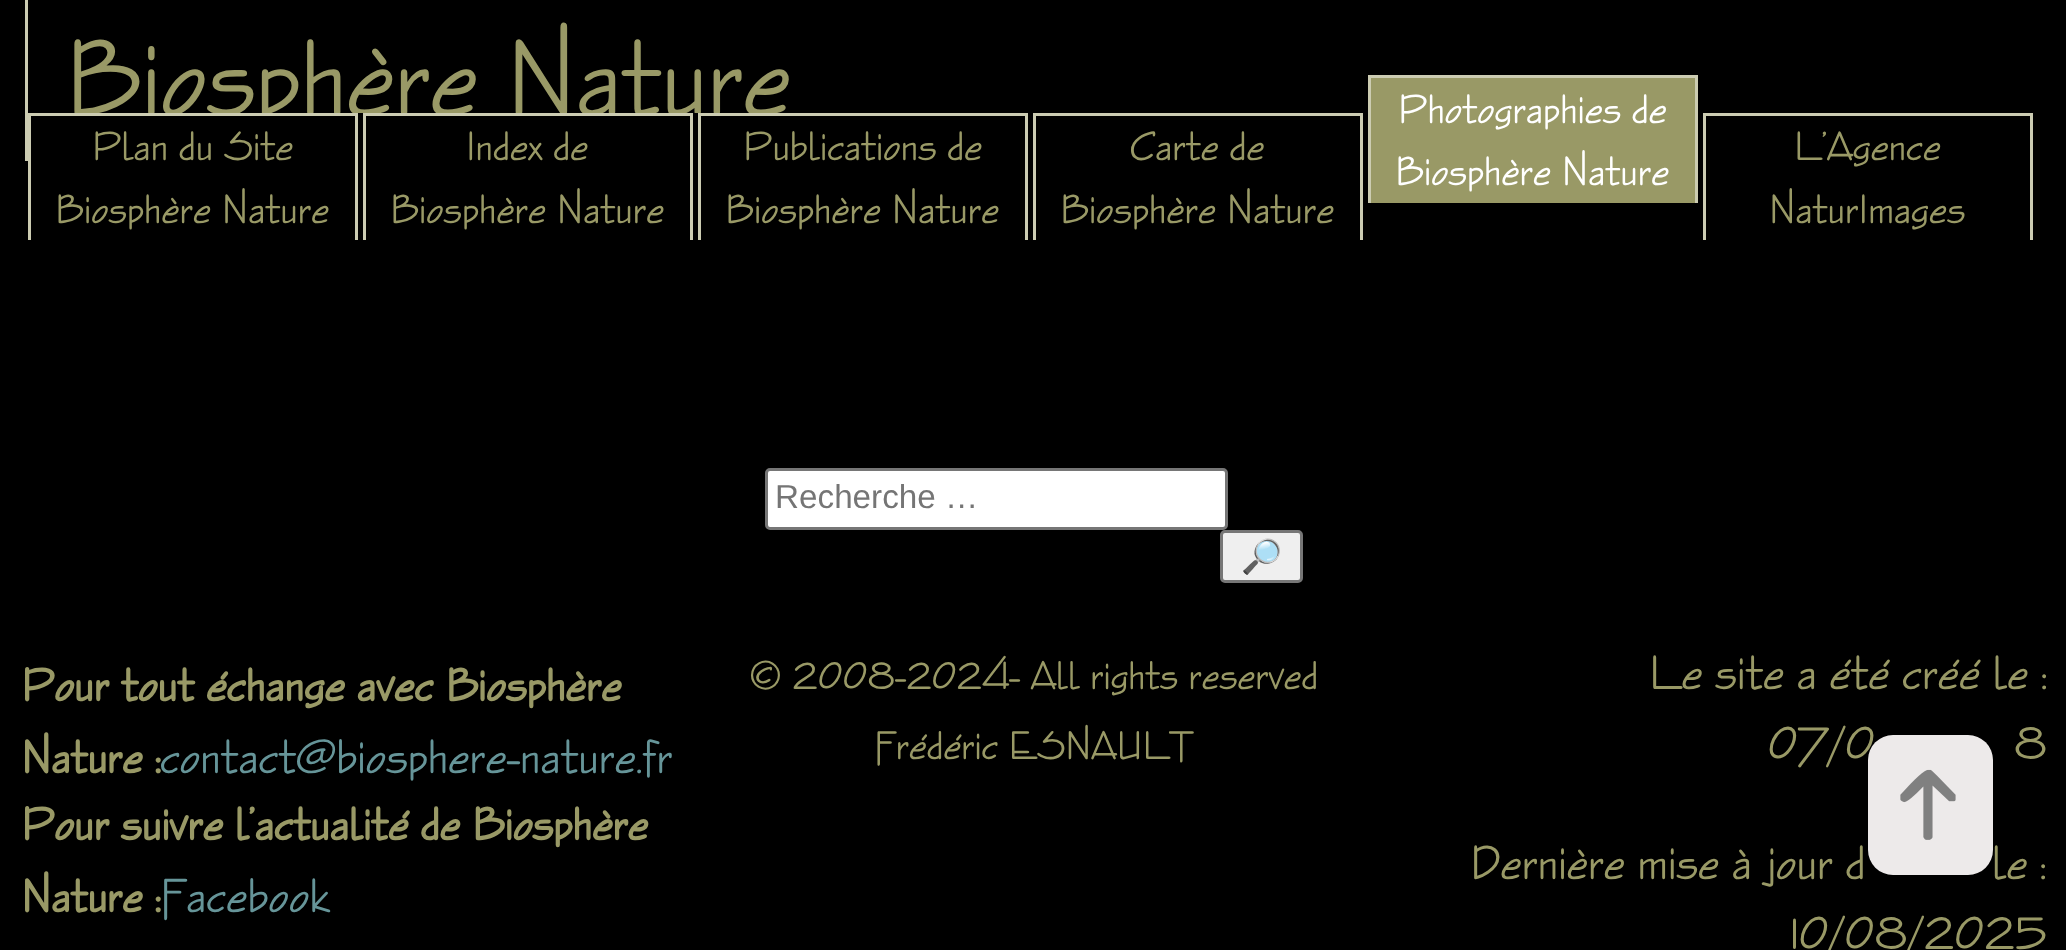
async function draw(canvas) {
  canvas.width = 2066
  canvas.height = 950
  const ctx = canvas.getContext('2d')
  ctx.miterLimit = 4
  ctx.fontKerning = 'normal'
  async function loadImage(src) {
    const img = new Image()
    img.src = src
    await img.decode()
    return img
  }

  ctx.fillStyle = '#000'
  ctx.fillRect(0, 0, 2066, 950)
  ctx.fillStyle = '#ccccb2'
  ctx.fillRect(25, 0, 3, 161)
  ctx.font = '112.5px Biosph'
  ctx.fillStyle = '#996'
  ctx.fillText('Biosphère Nature', 65, 115)
  ctx.fillStyle = '#000'
  ctx.fillRect(74, 113, 703, 20)
  ctx.fillStyle = '#ccccb2'
  ctx.fillRect(28, 113, 330, 3)
  ctx.fillRect(355, 113, 3, 127)
  ctx.fillRect(28, 113, 3, 127)
  ctx.font = '42.5px Biosph'
  ctx.fillStyle = '#996'
  ctx.fillText('Plan du Site', 92, 160)
  ctx.fillText('Biosphère Nature', 55, 223)
  ctx.fillStyle = '#ccccb2'
  ctx.fillRect(363, 113, 330, 3)
  ctx.fillRect(690, 113, 3, 127)
  ctx.fillRect(363, 113, 3, 127)
  ctx.fillStyle = '#996'
  ctx.fillText('Index de', 466, 160)
  ctx.fillText('Biosphère Nature', 390, 223)
  ctx.fillStyle = '#ccccb2'
  ctx.fillRect(698, 113, 330, 3)
  ctx.fillRect(1025, 113, 3, 127)
  ctx.fillRect(698, 113, 3, 127)
  ctx.fillStyle = '#996'
  ctx.fillText('Publications de', 743, 160)
  ctx.fillText('Biosphère Nature', 725, 223)
  ctx.fillStyle = '#ccccb2'
  ctx.fillRect(1033, 113, 330, 3)
  ctx.fillRect(1360, 113, 3, 127)
  ctx.fillRect(1033, 113, 3, 127)
  ctx.fillStyle = '#996'
  ctx.fillText('Carte de', 1130, 160)
  ctx.fillText('Biosphère Nature', 1060, 223)
  ctx.fillRect(1371, 78, 324, 125)
  ctx.fillStyle = '#ccccb2'
  ctx.fillRect(1368, 75, 330, 3)
  ctx.fillRect(1695, 75, 3, 128)
  ctx.fillRect(1368, 75, 3, 128)
  ctx.fillStyle = '#fff'
  ctx.fillText('Photographies de', 1398, 123)
  ctx.fillText('Biosphère Nature', 1395, 185)
  ctx.fillStyle = '#ccccb2'
  ctx.fillRect(1703, 113, 330, 3)
  ctx.fillRect(2030, 113, 3, 127)
  ctx.fillRect(1703, 113, 3, 127)
  ctx.fillStyle = '#996'
  ctx.fillText('L’Agence', 1794, 160)
  ctx.fillText('NaturImages', 1769, 223)
  ctx.fillStyle = '#fff'
  ctx.beginPath()
  ctx.roundRect(766.5, 469.5, 460, 59, 3.5)
  ctx.fill()
  ctx.strokeStyle = '#767676'
  ctx.lineWidth = 3
  ctx.stroke()
  ctx.font = '33.25px Liberation Sans'
  ctx.fillStyle = '#757575'
  ctx.fillText('Recherche …', 775, 508)
  ctx.fillStyle = '#efefef'
  ctx.beginPath()
  ctx.roundRect(1221.5, 531.5, 80, 50, 3.5)
  ctx.fill()
  ctx.stroke()
  ctx.font = '33.25px Noto Color Emoji'
  ctx.fillStyle = '#000'
  ctx.fillText('🔎', 1241, 568)
  ctx.font = 'bold 48px Biosph'
  ctx.fillStyle = '#996'
  ctx.fillText('Pour tout échange avec Biosphère', 21, 701)
  ctx.fillText('Nature :', 21, 773)
  ctx.font = '50px Biosph'
  ctx.fillStyle = '#669599'
  ctx.fillText('contact@biosphere-nature.fr', 160, 773)
  ctx.font = 'bold 48px Biosph'
  ctx.fillStyle = '#996'
  ctx.fillText('Pour suivre l’actualité de Biosphère', 21, 840)
  ctx.fillText('Nature :', 21, 912)
  ctx.font = '50px Biosph'
  ctx.fillStyle = '#669599'
  ctx.fillText('Facebook', 160, 912)
  ctx.font = '41.7px Biosph'
  ctx.fillStyle = '#996'
  ctx.fillText('© 2008-2024- All rights reserved', 749, 689)
  ctx.fillText('Frédéric ESNAULT', 874, 759)
  ctx.font = '50px Biosph'
  ctx.fillText('Le site a été créé le :', 1649, 689)
  ctx.fillText('07/0', 1768, 759)
  ctx.fillText('8', 2014, 759)
  ctx.fillText('Dernière mise à jour d', 1470, 879)
  ctx.fillText('le :', 1992, 879)
  ctx.fillText('10/08/2025', 1790, 949)
  ctx.fillStyle = '#edeaea'
  ctx.beginPath()
  ctx.roundRect(1868, 735, 125, 140, 25)
  ctx.fill()
  ctx.drawImage(await loadImage('image0.png'), 1900, 769, 56, 71)
}

draw(document.querySelector('canvas'))
